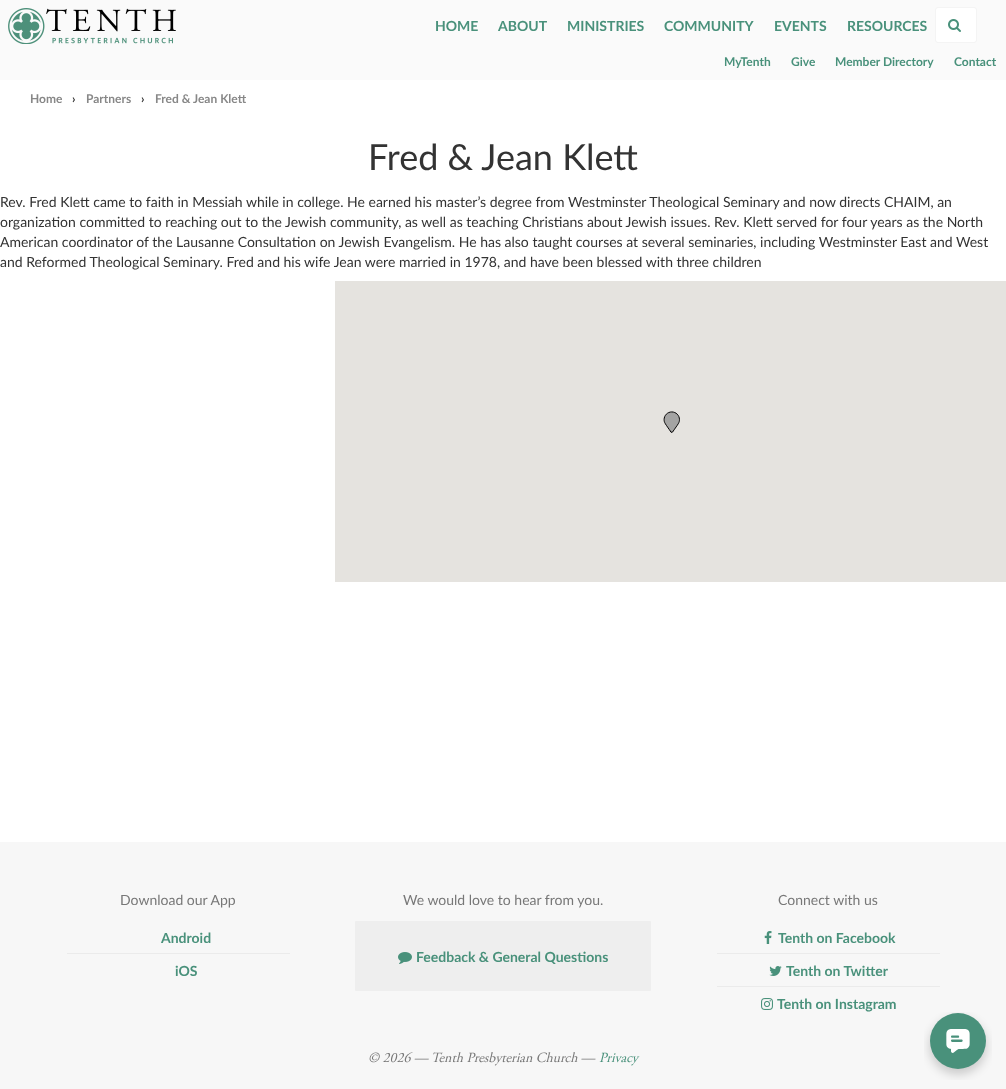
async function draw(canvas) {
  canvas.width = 1006
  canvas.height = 1089
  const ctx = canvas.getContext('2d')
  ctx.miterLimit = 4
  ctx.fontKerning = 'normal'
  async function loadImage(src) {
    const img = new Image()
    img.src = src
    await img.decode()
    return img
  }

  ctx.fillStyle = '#fff'
  ctx.fillRect(0, 0, 1006, 1089)
  ctx.fillStyle = '#fafafa'
  ctx.fillRect(0, 0, 1006, 80)
  ctx.drawImage(await loadImage('image0.png'), 8, 8, 168, 36)
  ctx.font = 'bold 14px Lato'
  ctx.fillStyle = '#49917b'
  ctx.fillText('HOME', 435, 31)
  ctx.fillText('ABOUT', 498, 31)
  ctx.fillText('MINISTRIES', 567, 31)
  ctx.fillText('COMMUNITY', 664, 31)
  ctx.fillText('EVENTS', 774, 31)
  ctx.fillText('RESOURCES', 847, 31)
  ctx.fillStyle = '#fff'
  ctx.beginPath()
  ctx.roundRect(936, 8, 40, 34, 2)
  ctx.fill()
  ctx.drawImage(await loadImage('image1.png'), 948, 19, 13, 13)
  ctx.beginPath()
  ctx.roundRect(935.5, 7.5, 41, 35, 2.5)
  ctx.strokeStyle = '#f4f4f4'
  ctx.stroke()
  ctx.font = 'bold 12px Lato'
  ctx.fillStyle = '#49917b'
  ctx.fillText('MyTenth', 724, 66)
  ctx.fillText('Give', 791, 66)
  ctx.fillText('Member Directory', 835, 66)
  ctx.fillText('Contact', 954, 66)
  ctx.fillStyle = '#888'
  ctx.fillText('Home', 30, 103)
  ctx.fillStyle = '#333'
  ctx.fillText('›', 72, 103)
  ctx.fillStyle = '#888'
  ctx.fillText('Partners', 86, 103)
  ctx.fillStyle = '#333'
  ctx.fillText('›', 141, 103)
  ctx.fillStyle = '#888'
  ctx.fillText('Fred & Jean Klett', 155, 103)
  ctx.font = '36px Lato'
  ctx.fillStyle = '#333'
  ctx.fillText('Fred & Jean Klett', 368, 170)
  ctx.font = '14px Lato'
  ctx.fillText('Rev. Fred Klett came to faith in Messiah while in college. He earned his master’s degree from Westminster Theological Seminary and now directs CHAIM, an', 0, 207)
  ctx.fillText('organization committed to reaching out to the Jewish community, as well as teaching Christians about Jewish issues. Rev. Klett served for four years as the North', 0, 227)
  ctx.fillText('American coordinator of the Lausanne Consultation on Jewish Evangelism. He has also taught courses at several seminaries, including Westminster East and West', 0, 247)
  ctx.fillText('and Reformed Theological Seminary. Fred and his wife Jean were married in 1978, and have been blessed with three children', 0, 267)
  ctx.fillStyle = '#e5e3df'
  ctx.fillRect(335, 281, 671, 301)
  ctx.drawImage(await loadImage('image2.png'), 663, 411, 17, 22)
  ctx.fillStyle = '#f7f7f7'
  ctx.fillRect(0, 842, 1006, 247)
  ctx.fillStyle = '#777'
  ctx.fillText('Download our App', 120, 905)
  ctx.fillStyle = '#ebebeb'
  ctx.fillRect(67, 953, 223, 1)
  ctx.font = 'bold 14px Lato'
  ctx.fillStyle = '#49917b'
  ctx.fillText('Android', 161, 943)
  ctx.fillText('iOS', 175, 976)
  ctx.font = '14px Lato'
  ctx.fillStyle = '#777'
  ctx.fillText('We would love to hear from you.', 403, 905)
  ctx.fillStyle = '#eee'
  ctx.beginPath()
  ctx.roundRect(355, 921, 296, 70, 1)
  ctx.fill()
  ctx.drawImage(await loadImage('image3.png'), 398, 952, 14, 12)
  ctx.font = 'bold 14px Lato'
  ctx.fillStyle = '#49917b'
  ctx.fillText('Feedback & General Questions', 416, 962)
  ctx.font = '14px Lato'
  ctx.fillStyle = '#777'
  ctx.fillText('Connect with us', 778, 905)
  ctx.fillStyle = '#ebebeb'
  ctx.fillRect(717, 953, 223, 1)
  ctx.drawImage(await loadImage('image4.png'), 764, 931, 8, 13)
  ctx.font = 'bold 14px Lato'
  ctx.fillStyle = '#49917b'
  ctx.fillText('Tenth on Facebook', 778, 943)
  ctx.fillStyle = '#ebebeb'
  ctx.fillRect(717, 986, 223, 1)
  ctx.drawImage(await loadImage('image5.png'), 769, 966, 13, 10)
  ctx.fillStyle = '#49917b'
  ctx.fillText('Tenth on Twitter', 786, 976)
  ctx.drawImage(await loadImage('image6.png'), 761, 998, 12, 12)
  ctx.fillText('Tenth on Instagram', 777, 1009)
  ctx.font = 'italic 14px Adobe Garamond'
  ctx.fillStyle = '#777'
  ctx.fillText('© 2026 — Tenth Presbyterian Church —', 368, 1062)
  ctx.fillStyle = '#49917b'
  ctx.fillText('Privacy', 599, 1062)
  ctx.drawImage(await loadImage('image7.png'), 924, 1012, 68, 68)
}

draw(document.querySelector('canvas'))
